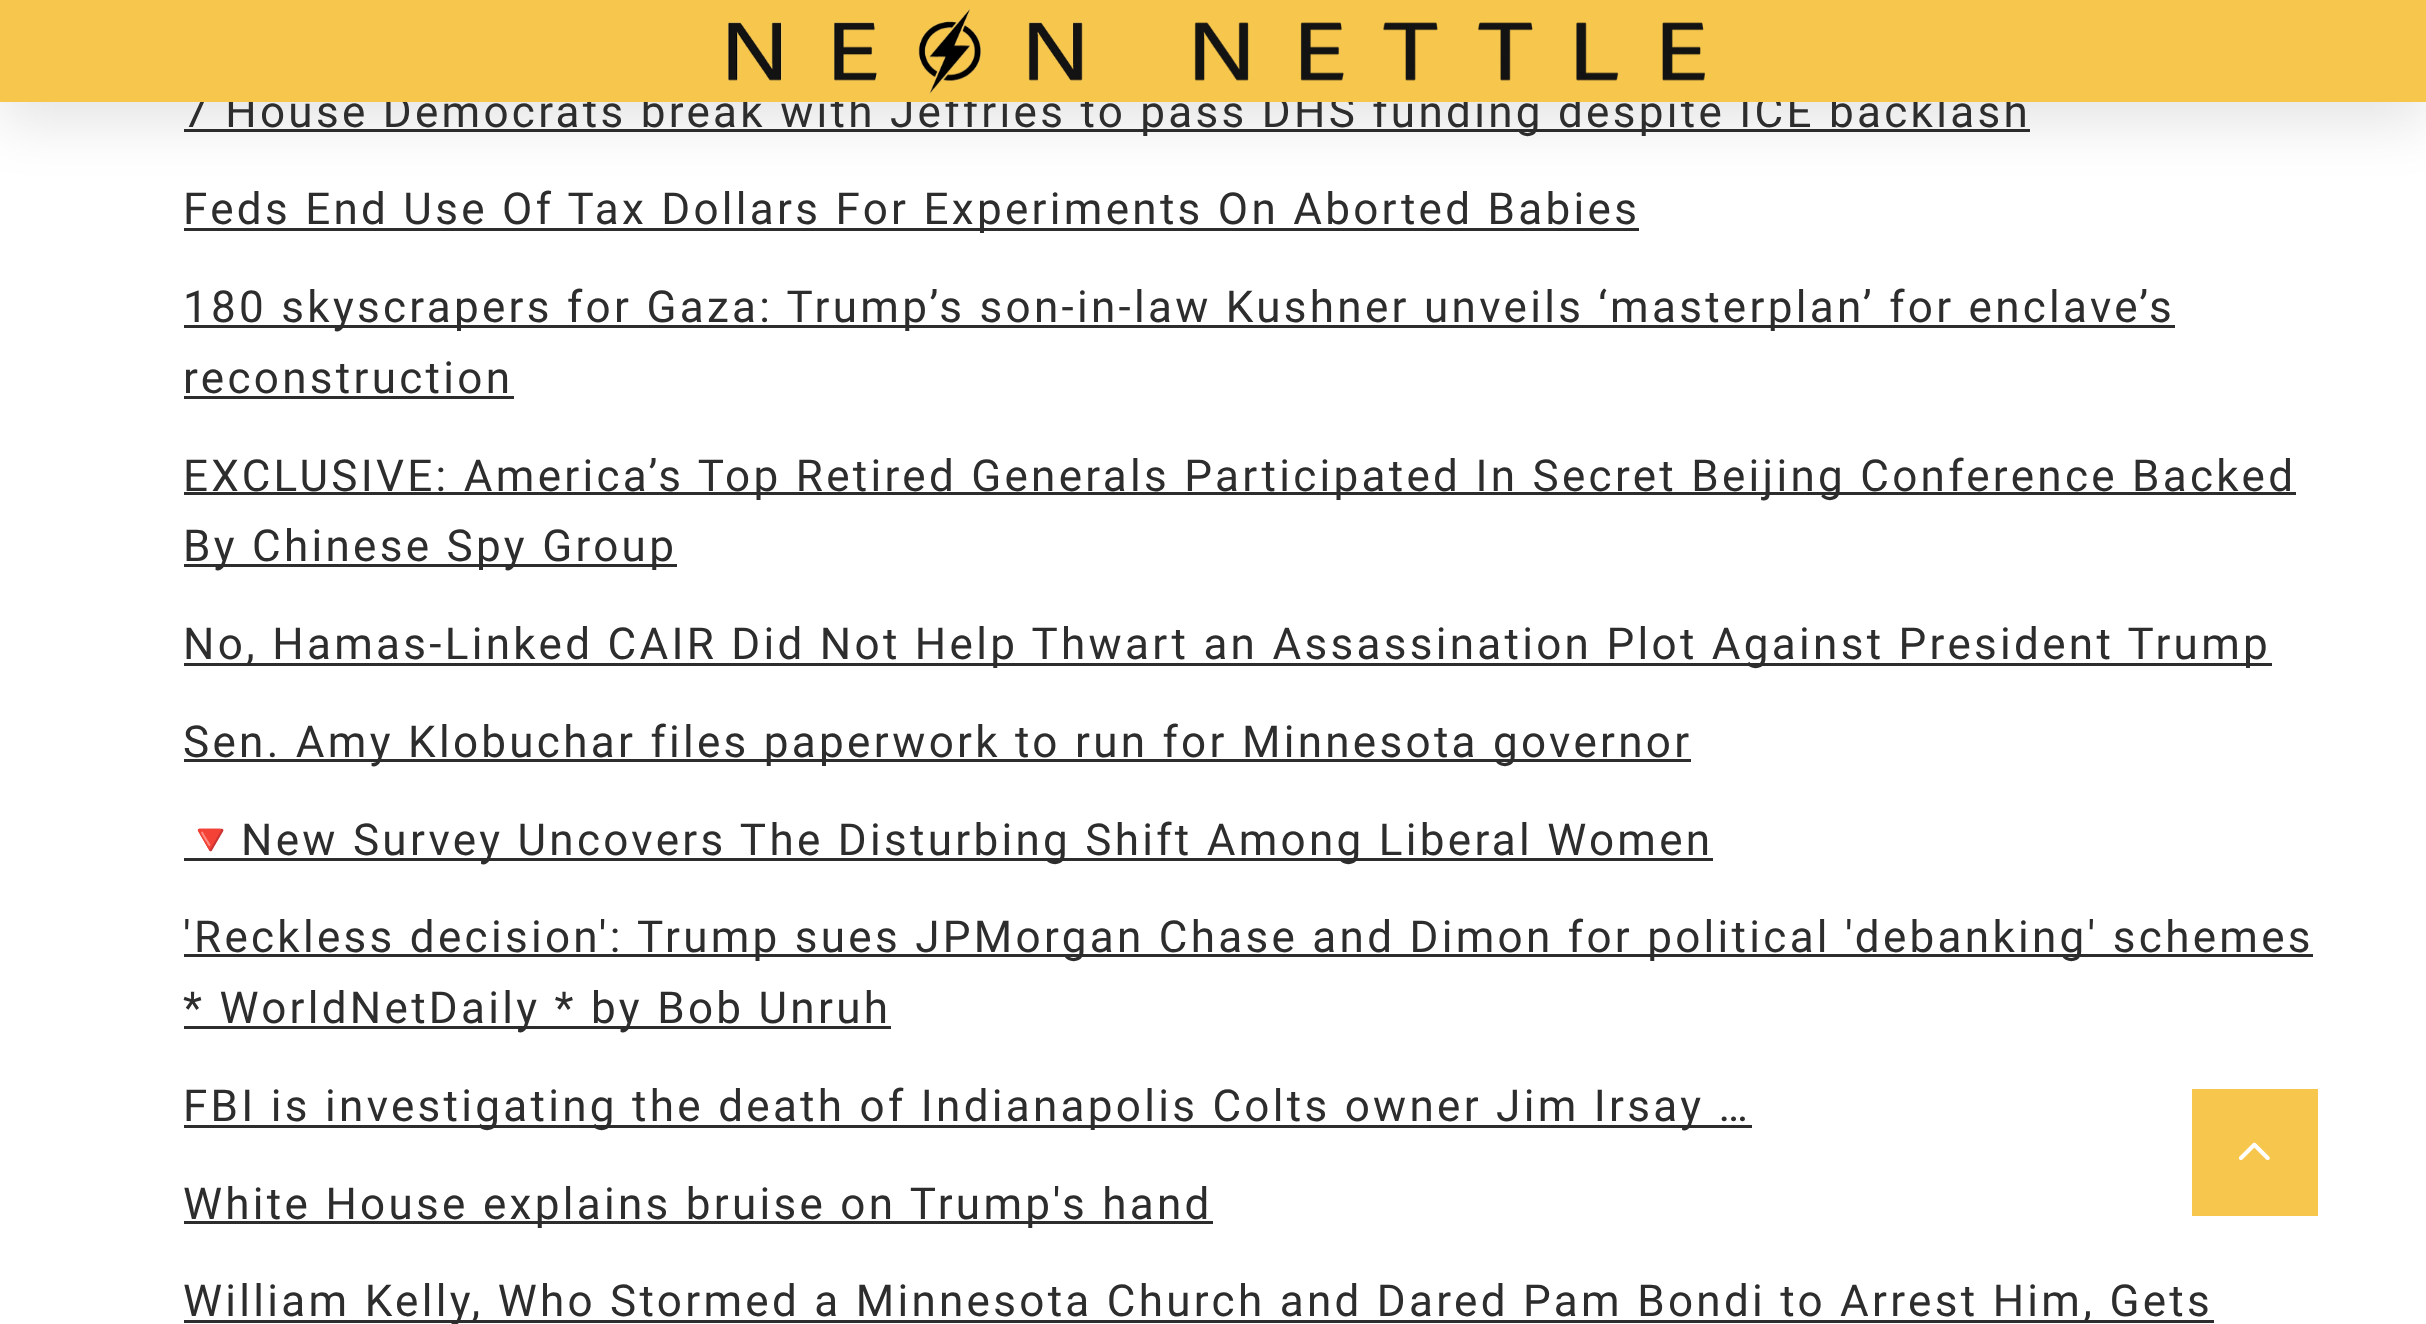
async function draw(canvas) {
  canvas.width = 2426
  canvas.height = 1324
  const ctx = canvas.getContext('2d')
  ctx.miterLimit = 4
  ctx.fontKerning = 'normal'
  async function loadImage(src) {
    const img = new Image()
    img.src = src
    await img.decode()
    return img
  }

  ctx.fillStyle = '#fff'
  ctx.fillRect(0, 0, 2426, 1324)
  ctx.fillStyle = '#2d2d2d'
  ctx.fillRect(184, 129, 1846, 3)
  ctx.fillStyle = '#0000001a'
  ctx.filter = 'blur(27.5px)'
  ctx.beginPath()
  ctx.rect(0, 22, 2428, 102)
  ctx.fill()
  ctx.filter = 'none'
  ctx.letterSpacing = '3.3px'
  ctx.font = '44px Roboto'
  ctx.fillStyle = '#2d2d2d'
  ctx.fillText('7 House Democrats break with Jeffries to pass DHS funding despite ICE backlash', 183, 127)
  ctx.fillStyle = '#f7c74d'
  ctx.fillRect(0, 0, 2426, 102)
  ctx.drawImage(await loadImage('image0.png'), 728, 8, 977, 86)
  ctx.fillStyle = '#2d2d2d'
  ctx.fillRect(184, 228, 1455, 3)
  ctx.fillText('Feds End Use Of Tax Dollars For Experiments On Aborted Babies', 183, 224)
  ctx.fillRect(184, 325, 1991, 3)
  ctx.fillText('180 skyscrapers for Gaza: Trump’s son-in-law Kushner unveils ‘masterplan’ for enclave’s', 183, 322)
  ctx.fillText('reconstruction', 183, 393)
  ctx.fillRect(184, 396, 330, 3)
  ctx.fillRect(184, 492, 2112, 3)
  ctx.fillText('EXCLUSIVE: America’s Top Retired Generals Participated In Secret Beijing Conference Backed', 183, 491)
  ctx.fillRect(184, 564, 493, 3)
  ctx.fillText('By Chinese Spy Group', 183, 561)
  ctx.fillRect(184, 663, 2088, 3)
  ctx.fillText('No, Hamas-Linked CAIR Did Not Help Thwart an Assassination Plot Against President Trump', 183, 659)
  ctx.fillRect(184, 759, 1507, 3)
  ctx.fillText('Sen. Amy Klobuchar files paperwork to run for Minnesota governor', 183, 757)
  ctx.fillRect(184, 858, 1529, 3)
  ctx.font = '44px Noto Color Emoji'
  ctx.fillText('🔻', 183, 855)
  ctx.font = '44px Roboto'
  ctx.fillText('New Survey Uncovers The Disturbing Shift Among Liberal Women', 241, 855)
  ctx.fillRect(184, 954, 2129, 3)
  ctx.fillText('\'Reckless decision\': Trump sues JPMorgan Chase and Dimon for political \'debanking\' schemes', 183, 952)
  ctx.fillRect(184, 1026, 707, 3)
  ctx.fillText('* WorldNetDaily * by Bob Unruh', 183, 1023)
  ctx.fillRect(184, 1125, 1568, 3)
  ctx.fillText('FBI is investigating the death of Indianapolis Colts owner Jim Irsay …', 183, 1121)
  ctx.fillRect(184, 1221, 1029, 3)
  ctx.fillText('White House explains bruise on Trump\'s hand', 183, 1219)
  ctx.fillRect(184, 1320, 2030, 3)
  ctx.fillText('William Kelly, Who Stormed a Minnesota Church and Dared Pam Bondi to Arrest Him, Gets', 183, 1316)
  ctx.fillStyle = '#f7c74d'
  ctx.fillRect(2192, 1089, 126, 127)
  ctx.drawImage(await loadImage('image1.png'), 2238, 1142, 32, 19)
}

draw(document.querySelector('canvas'))
